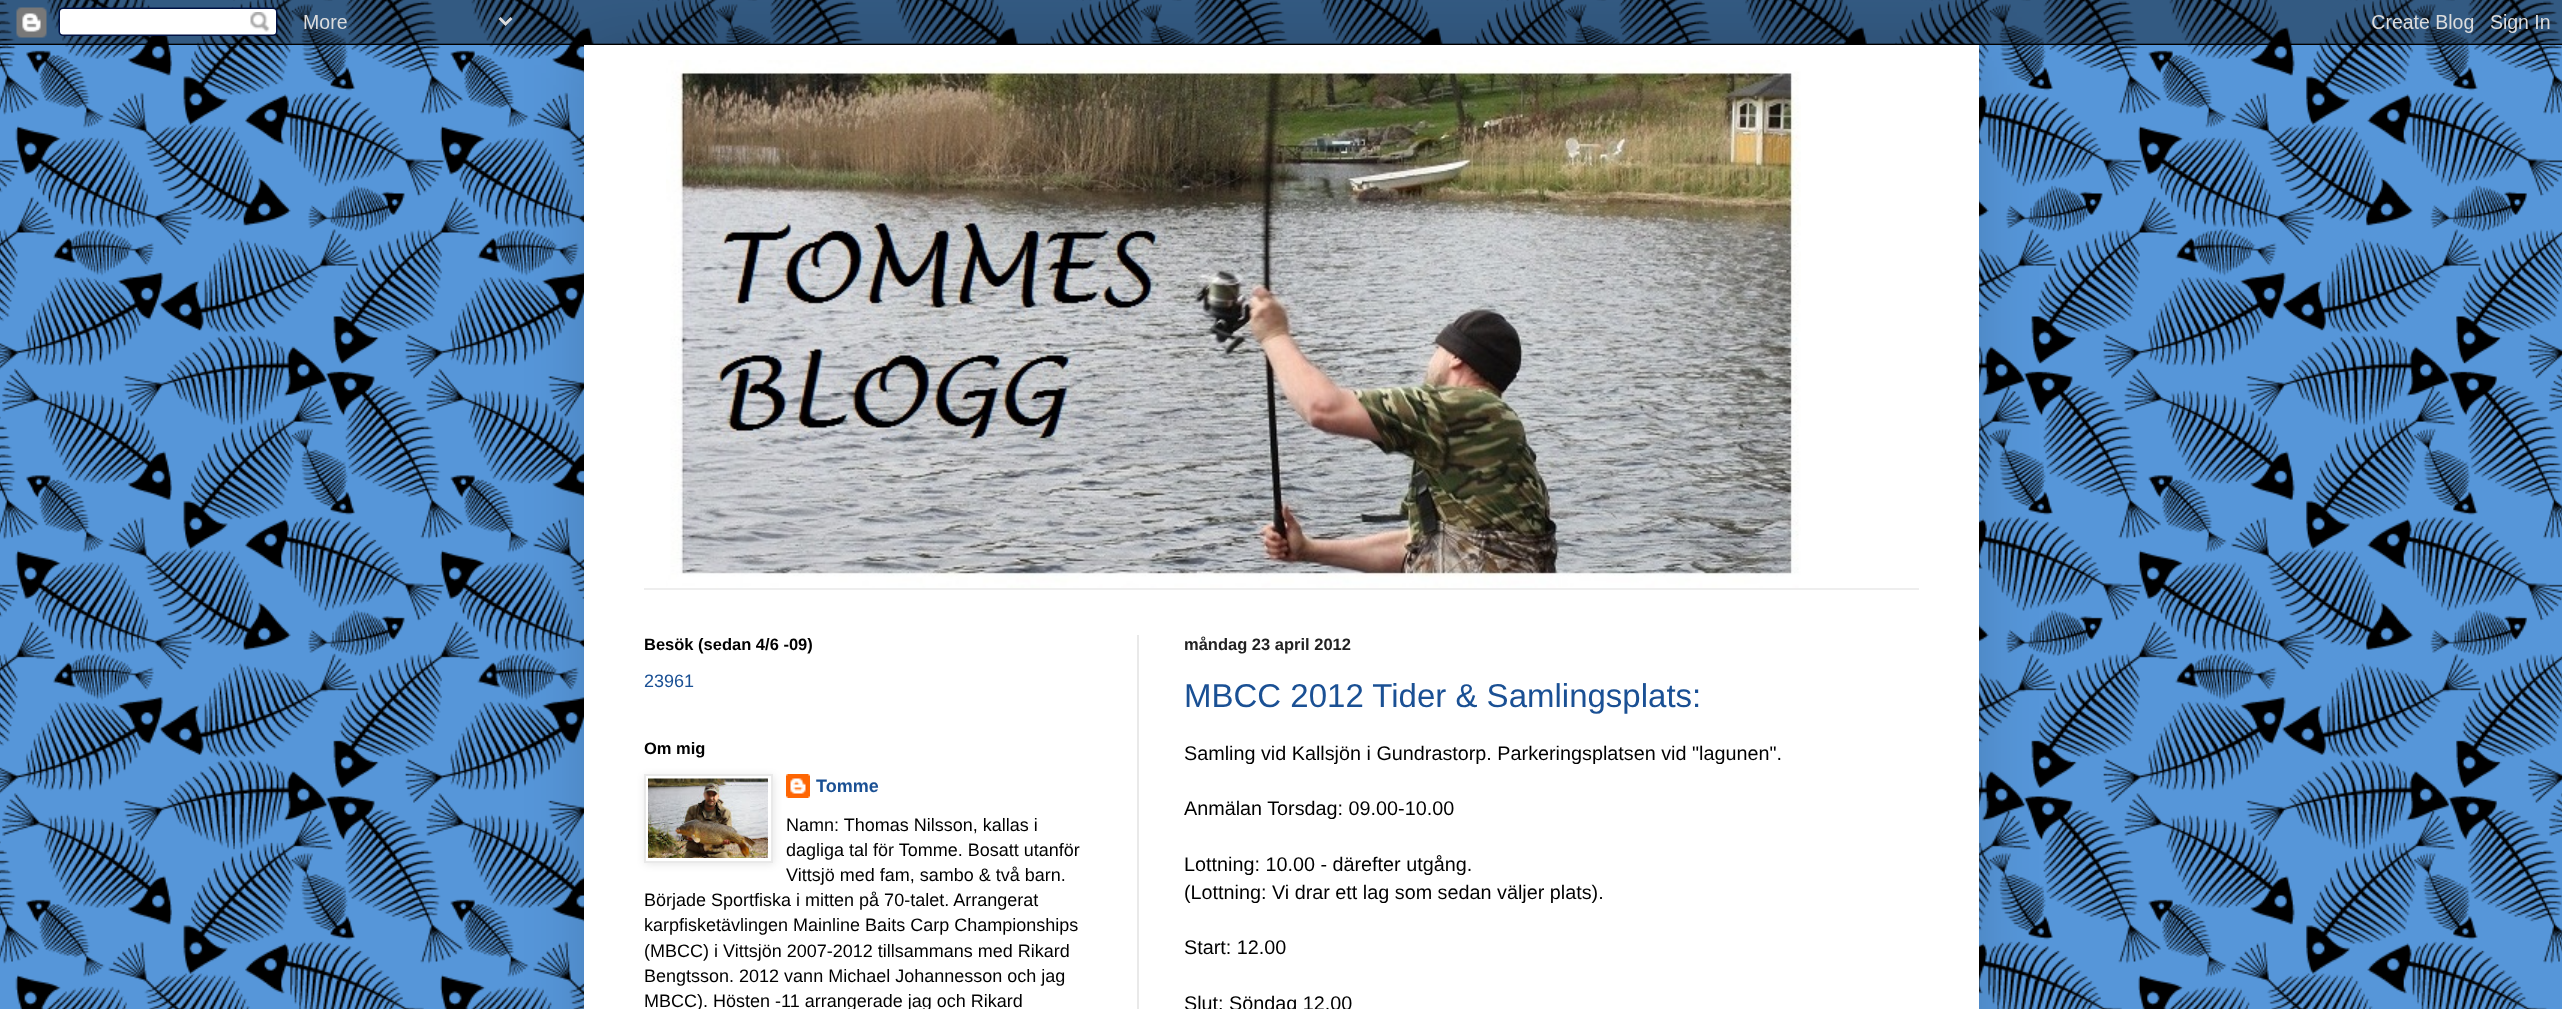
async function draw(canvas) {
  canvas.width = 2562
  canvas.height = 1009
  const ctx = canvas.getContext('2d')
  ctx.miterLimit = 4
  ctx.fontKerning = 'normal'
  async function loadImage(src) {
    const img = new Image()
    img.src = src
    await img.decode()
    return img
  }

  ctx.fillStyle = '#5696d9'
  ctx.fillRect(0, 0, 2562, 1009)
  ctx.drawImage(await loadImage('image0.png'), 0, 0, 2562, 1009)
  ctx.fillStyle = '#00000026'
  ctx.filter = 'blur(30px)'
  ctx.beginPath()
  ctx.rect(584, 45, 1395, 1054)
  ctx.fill()
  ctx.filter = 'none'
  ctx.drawImage(await loadImage('image1.png'), 0, 0, 2562, 45)
  ctx.fillStyle = '#fff'
  ctx.fillRect(584, 45, 1395, 964)
  ctx.drawImage(await loadImage('image2.png'), 666, 60, 1135, 528)
  ctx.fillStyle = '#eee'
  ctx.fillRect(644, 588, 1275, 2)
  ctx.fillStyle = '#e9e9e9'
  ctx.fillRect(1137, 635, 2, 374)
  ctx.font = 'bold 16.5px Liberation Sans'
  ctx.fillStyle = '#000'
  ctx.fillText('Besök (sedan 4/6 -09)', 644, 650)
  ctx.font = '18px Liberation Sans'
  ctx.fillStyle = '#1a5094'
  ctx.fillText('23961', 644, 687)
  ctx.font = 'bold 16.5px Liberation Sans'
  ctx.fillStyle = '#000'
  ctx.fillText('Om mig', 644, 754)
  ctx.drawImage(await loadImage('image4.png'), 786, 774, 24, 24)
  ctx.fillStyle = '#0000001a'
  ctx.filter = 'blur(4px)'
  ctx.beginPath()
  ctx.rect(645, 776, 129, 88)
  ctx.fill()
  ctx.filter = 'none'
  ctx.fillStyle = '#fff'
  ctx.beginPath()
  ctx.rect(645, 775, 127, 87)
  ctx.fill()
  ctx.strokeStyle = '#e9e9e9'
  ctx.lineWidth = 2
  ctx.stroke()
  ctx.drawImage(await loadImage('image3.png'), 648, 778, 120, 80)
  ctx.font = 'bold 18px Liberation Sans'
  ctx.fillStyle = '#1a5094'
  ctx.fillText('Tomme', 816, 792)
  ctx.font = '18px Liberation Sans'
  ctx.fillStyle = '#000'
  ctx.fillText('Namn: Thomas Nilsson, kallas i', 786, 831)
  ctx.fillText('dagliga tal för Tomme. Bosatt utanför', 786, 856)
  ctx.fillText('Vittsjö med fam, sambo & två barn.', 786, 881)
  ctx.fillText('Började Sportfiska i mitten på 70-talet. Arrangerat', 644, 906)
  ctx.fillText('karpfisketävlingen Mainline Baits Carp Championships', 644, 931)
  ctx.fillText('(MBCC) i Vittsjön 2007-2012 tillsammans med Rikard', 644, 957)
  ctx.fillText('Bengtsson. 2012 vann Michael Johannesson och jag', 644, 982)
  ctx.fillText('MBCC). Hösten -11 arrangerade jag och Rikard', 644, 1007)
  ctx.font = 'bold 16.5px Liberation Sans'
  ctx.fillStyle = '#222'
  ctx.fillText('måndag 23 april 2012', 1184, 650)
  ctx.font = '33px Liberation Sans'
  ctx.fillStyle = '#1a5094'
  ctx.fillText('MBCC 2012 Tider & Samlingsplats:', 1184, 707)
  ctx.font = '19.8px Liberation Sans'
  ctx.fillStyle = '#000'
  ctx.fillText('Samling vid Kallsjön i Gundrastorp. Parkeringsplatsen vid "lagunen".', 1184, 760)
  ctx.fillText('Anmälan Torsdag: 09.00-10.00', 1184, 815)
  ctx.fillText('Lottning: 10.00 - därefter utgång.', 1184, 871)
  ctx.fillText('(Lottning: Vi drar ett lag som sedan väljer plats).', 1184, 899)
  ctx.fillText('Start: 12.00', 1184, 954)
  ctx.fillText('Slut: Söndag 12.00', 1184, 1010)
}

draw(document.querySelector('canvas'))
